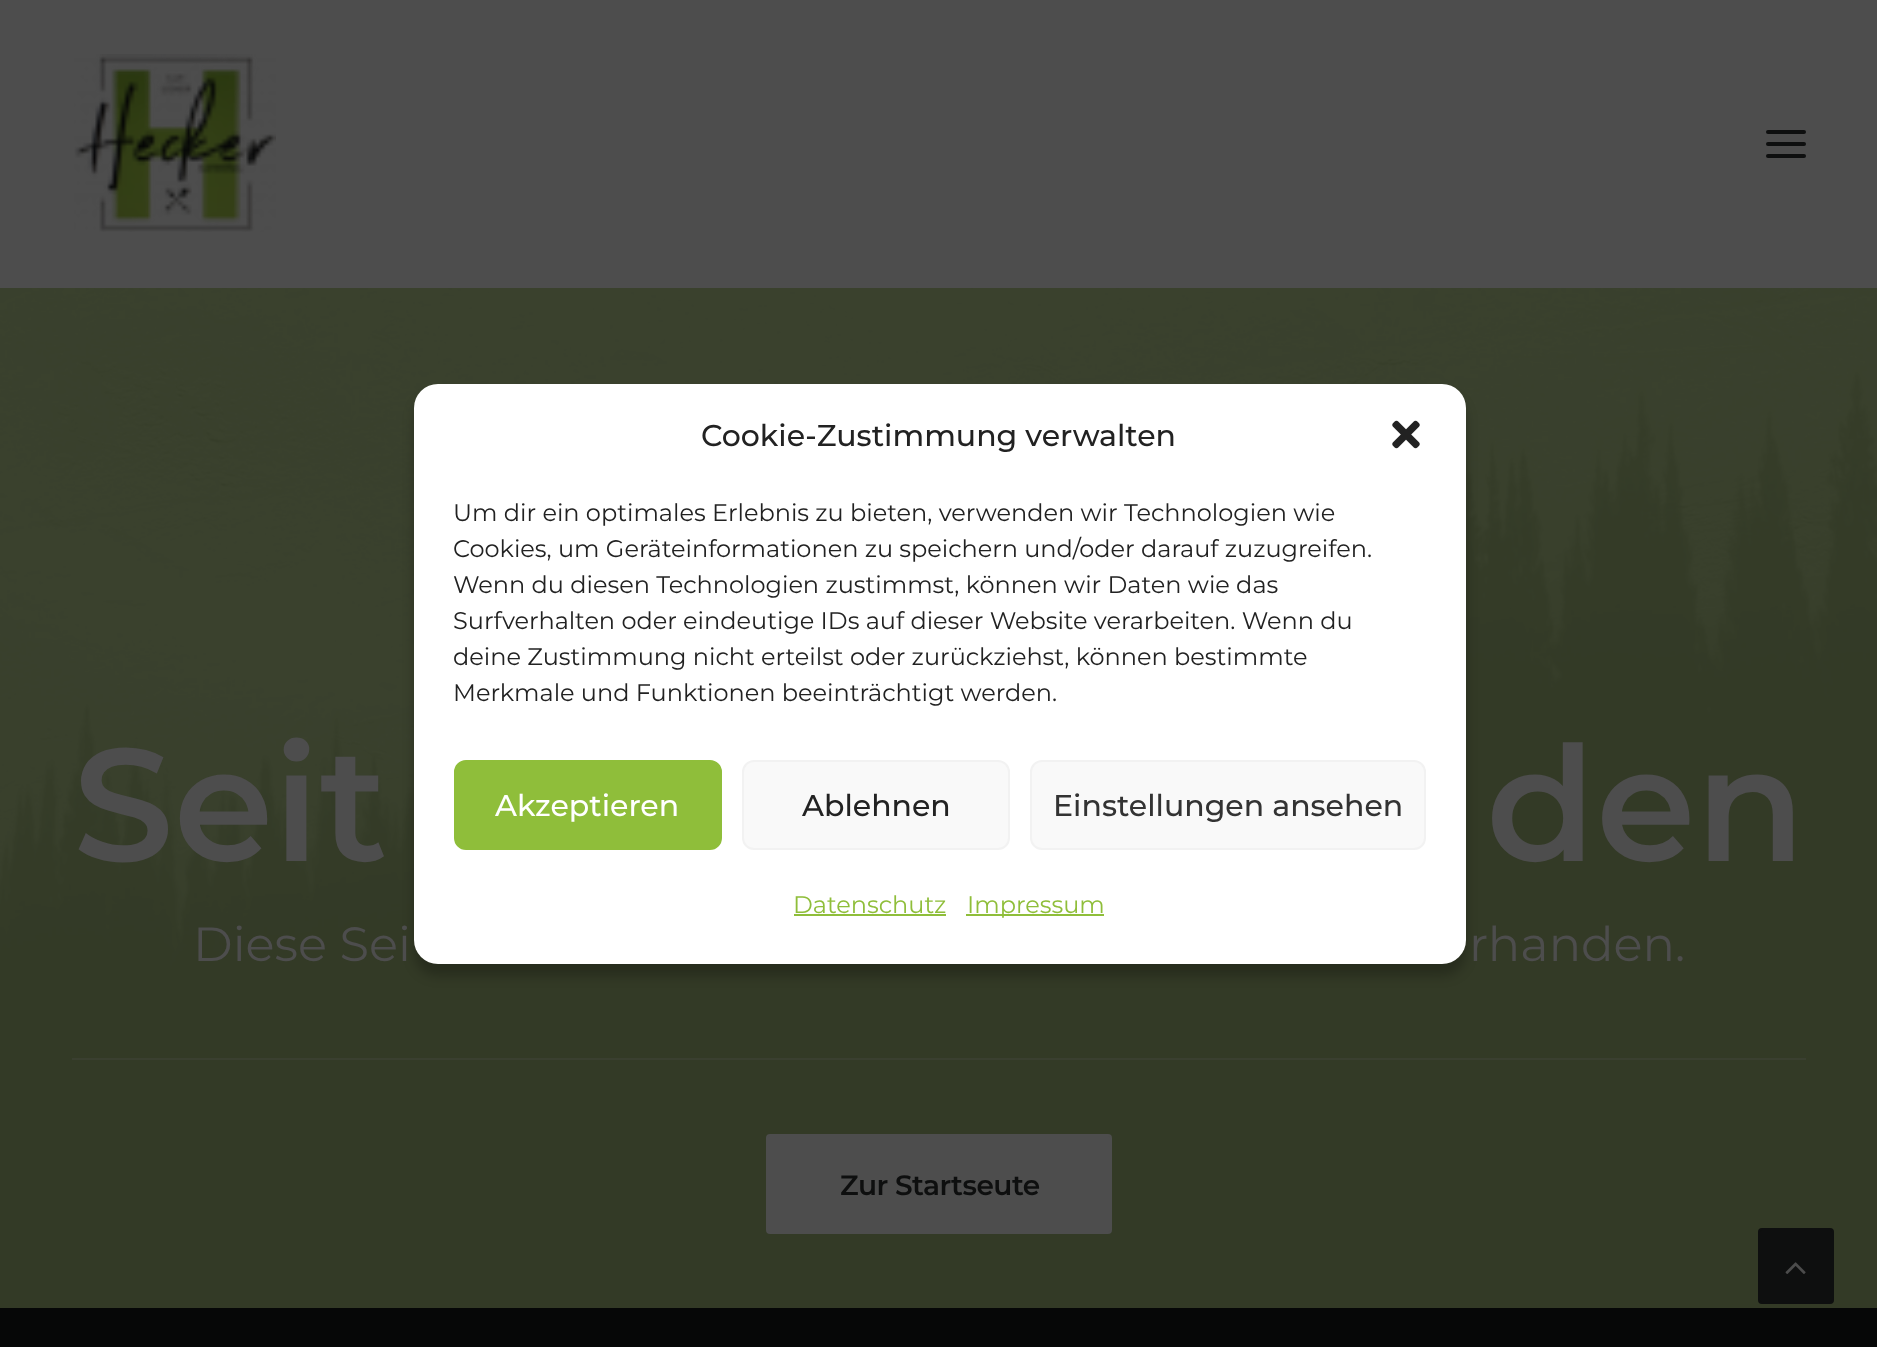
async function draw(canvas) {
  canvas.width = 1877
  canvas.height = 1347
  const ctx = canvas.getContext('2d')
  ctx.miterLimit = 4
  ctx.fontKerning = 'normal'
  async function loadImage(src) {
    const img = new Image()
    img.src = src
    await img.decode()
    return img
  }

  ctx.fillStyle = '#060707'
  ctx.fillRect(0, 0, 1877, 1347)
  ctx.drawImage(await loadImage('image2.png'), 0, 288, 1877, 1020)
  ctx.fillStyle = '#0000003b'
  ctx.filter = 'blur(6px)'
  ctx.beginPath()
  ctx.roundRect(414, 396, 1052, 580, 24)
  ctx.fill()
  ctx.filter = 'none'
  ctx.fillStyle = '#fff'
  ctx.beginPath()
  ctx.roundRect(414, 384, 1052, 580, 24)
  ctx.fill()
  ctx.font = '500 30px Montserrat'
  ctx.fillStyle = '#222'
  ctx.fillText('Cookie-Zustimmung verwalten', 701, 446)
  ctx.drawImage(await loadImage('image0.png'), 1392, 420, 28, 29)
  ctx.font = '24px Montserrat'
  ctx.fillText('Um dir ein optimales Erlebnis zu bieten, verwenden wir Technologien wie', 453, 521)
  ctx.fillText('Cookies, um Geräteinformationen zu speichern und/oder darauf zuzugreifen.', 453, 557)
  ctx.fillText('Wenn du diesen Technologien zustimmst, können wir Daten wie das', 453, 593)
  ctx.fillText('Surfverhalten oder eindeutige IDs auf dieser Website verarbeiten. Wenn du', 453, 629)
  ctx.fillText('deine Zustimmung nicht erteilst oder zurückziehst, können bestimmte', 453, 665)
  ctx.fillText('Merkmale und Funktionen beeinträchtigt werden.', 453, 701)
  ctx.fillStyle = '#8fbe3a'
  ctx.beginPath()
  ctx.roundRect(455, 761, 266, 88, 11)
  ctx.fill()
  ctx.strokeStyle = '#8fbe3a'
  ctx.lineWidth = 2
  ctx.stroke()
  ctx.font = '500 30px Montserrat'
  ctx.fillStyle = '#fff'
  ctx.fillText('Akzeptieren', 495, 816)
  ctx.fillStyle = '#f9f9f9'
  ctx.beginPath()
  ctx.roundRect(743, 761, 266, 88, 11)
  ctx.fill()
  ctx.strokeStyle = '#f2f2f2'
  ctx.stroke()
  ctx.fillStyle = '#222'
  ctx.fillText('Ablehnen', 802, 816)
  ctx.fillStyle = '#f9f9f9'
  ctx.beginPath()
  ctx.roundRect(1031, 761, 394, 88, 11)
  ctx.fill()
  ctx.stroke()
  ctx.fillStyle = '#333'
  ctx.fillText('Einstellungen ansehen', 1053, 816)
  ctx.font = '24px Montserrat'
  ctx.fillStyle = '#8fbe3a'
  ctx.fillText('Datenschutz', 793, 913)
  ctx.fillRect(794, 914, 152, 2)
  ctx.fillRect(966, 914, 138, 2)
  ctx.fillText('Impressum', 967, 913)
  ctx.fillStyle = '#4d4d4d'
  ctx.fillRect(0, 0, 1877, 288)
  ctx.drawImage(await loadImage('image1.png'), 74, 54, 202, 178)
  ctx.fillStyle = '#0e0f0f'
  ctx.beginPath()
  ctx.roundRect(1766, 142, 40, 4, 2)
  ctx.fill()
  ctx.beginPath()
  ctx.roundRect(1766, 130, 40, 4, 2)
  ctx.fill()
  ctx.beginPath()
  ctx.roundRect(1766, 154, 40, 4, 2)
  ctx.fill()
  ctx.font = '600 160px Montserrat'
  ctx.fillStyle = '#4d4d4d'
  ctx.fillText('Seit', 73, 861)
  ctx.fillText('den', 1486, 861)
  ctx.font = '48px Montserrat'
  ctx.fillText('Diese Sei', 193, 961)
  ctx.fillText('rhanden.', 1469, 961)
  ctx.fillStyle = '#3a3f30'
  ctx.fillRect(72, 1058, 1734, 2)
  ctx.fillStyle = '#4d4d4d'
  ctx.beginPath()
  ctx.roundRect(767, 1135, 344, 98, 3)
  ctx.fill()
  ctx.strokeStyle = '#4d4d4d'
  ctx.stroke()
  ctx.letterSpacing = '-0.5px'
  ctx.font = '600 28px Montserrat'
  ctx.fillStyle = '#0e0f0f'
  ctx.fillText('Zur Startseute', 840, 1195)
  ctx.beginPath()
  ctx.roundRect(1759, 1229, 74, 74, 3)
  ctx.fill()
  ctx.strokeStyle = '#0e0f0f'
  ctx.stroke()
  ctx.drawImage(await loadImage('image3.png'), 1785, 1262, 21, 12)
}

draw(document.querySelector('canvas'))
